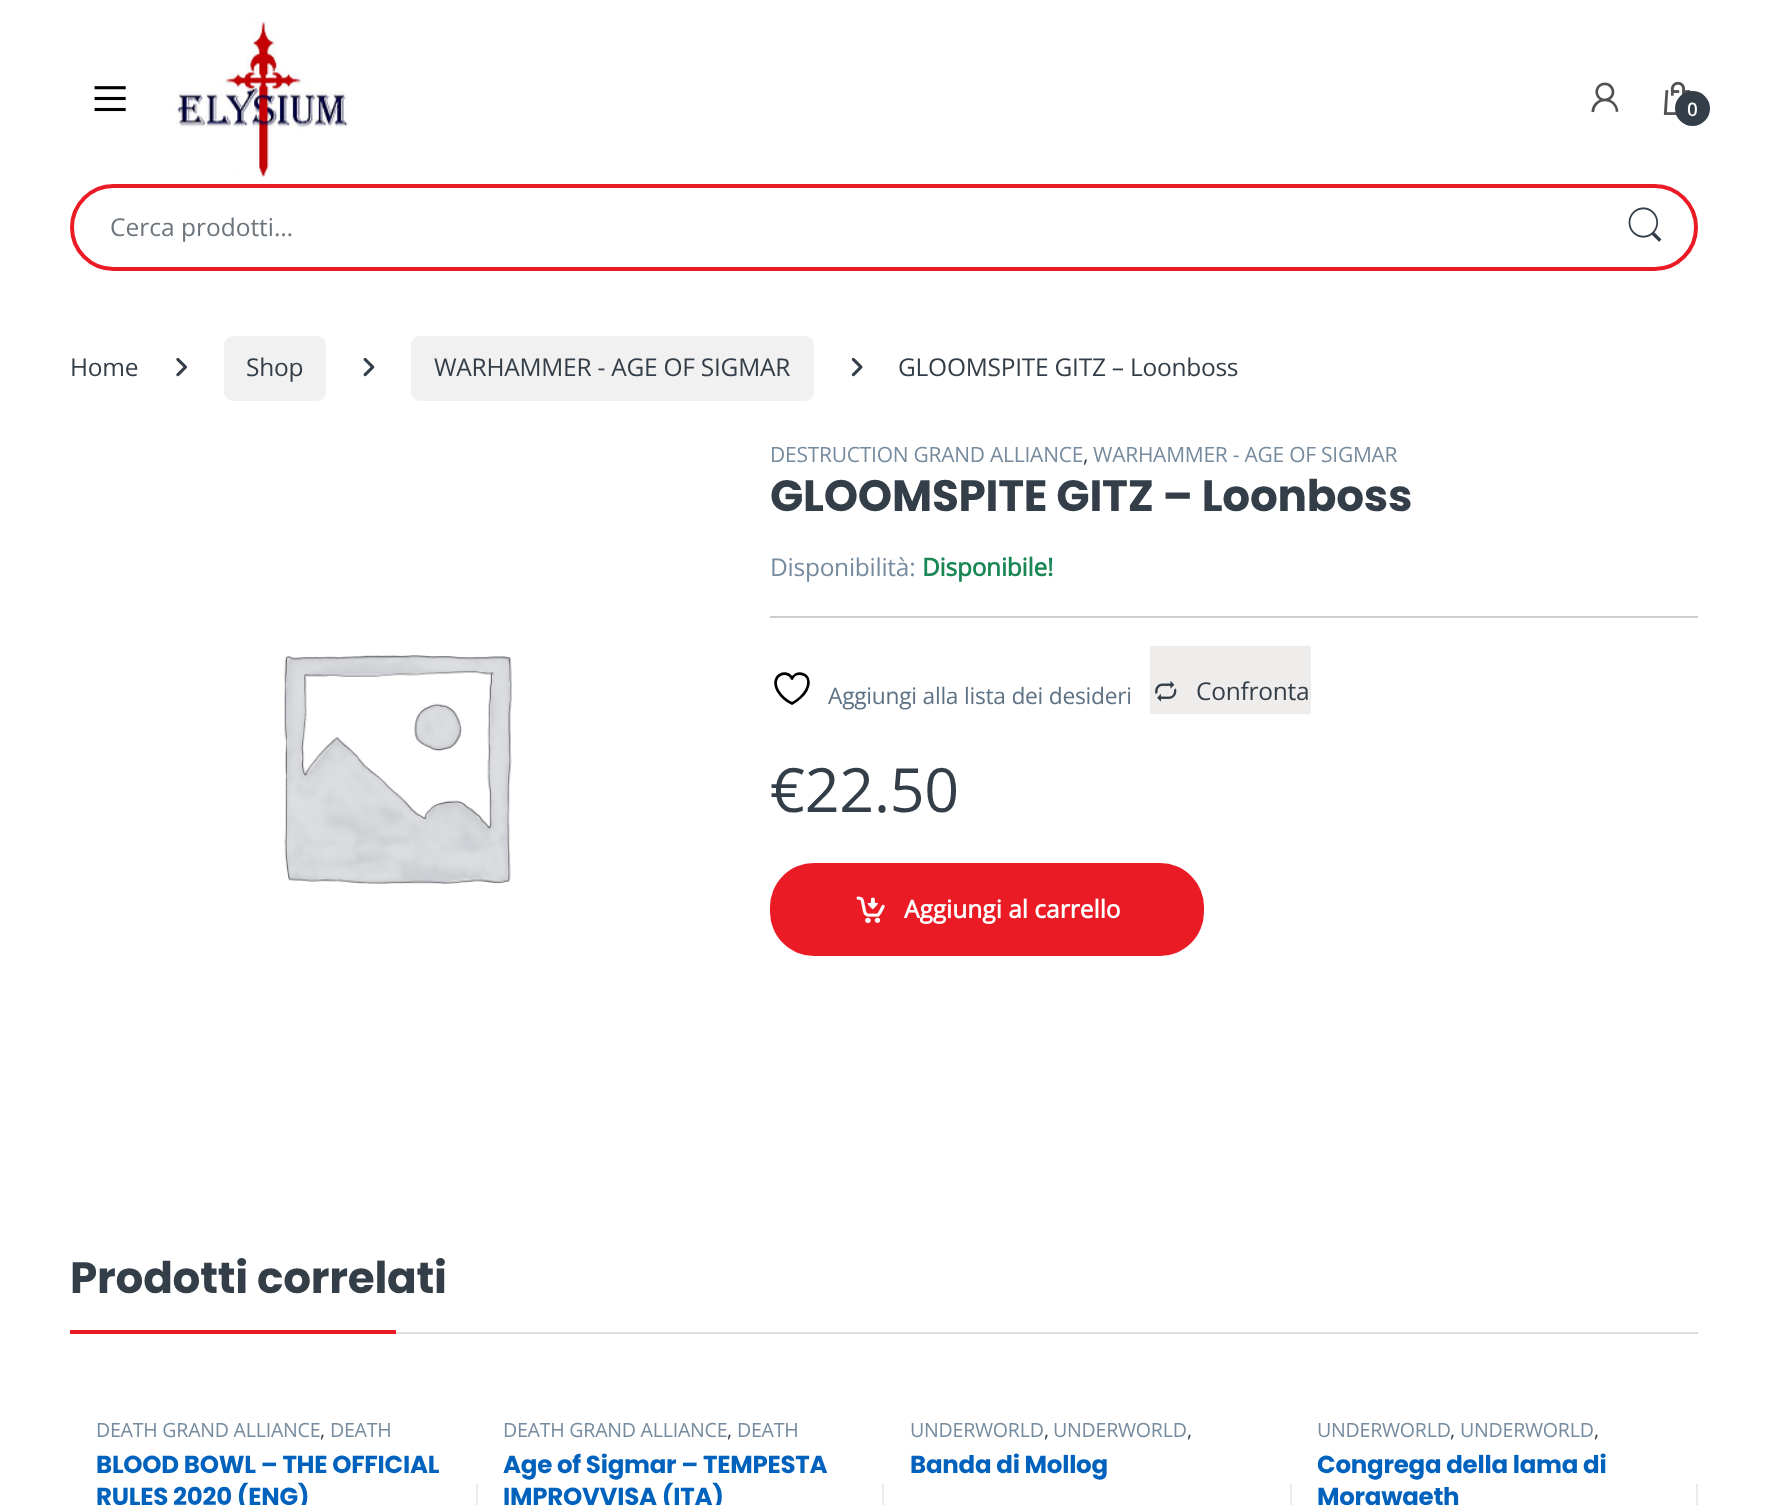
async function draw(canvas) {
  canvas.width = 1767
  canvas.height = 1505
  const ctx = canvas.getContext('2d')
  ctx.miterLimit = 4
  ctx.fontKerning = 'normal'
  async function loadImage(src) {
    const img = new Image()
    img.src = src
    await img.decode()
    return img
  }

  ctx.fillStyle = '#fff'
  ctx.fillRect(0, 0, 1767, 1505)
  ctx.drawImage(await loadImage('image0.png'), 94, 86, 32, 26)
  ctx.drawImage(await loadImage('image1.png'), 175, 21, 173, 156)
  ctx.drawImage(await loadImage('image2.png'), 1591, 82, 28, 31)
  ctx.drawImage(await loadImage('image3.png'), 1663, 81, 28, 34)
  ctx.fillStyle = '#333e48'
  ctx.beginPath()
  ctx.arc(1692.5, 108.5, 17.5, 0, 2 * Math.PI)
  ctx.fill()
  ctx.letterSpacing = '-0.25px'
  ctx.font = 'bold 18px Open Sans'
  ctx.fillStyle = '#fff'
  ctx.fillText('0', 1687, 116)
  ctx.beginPath()
  ctx.roundRect(72, 186, 1624, 83, 41.5)
  ctx.strokeStyle = '#ea1b25'
  ctx.lineWidth = 4
  ctx.stroke()
  ctx.letterSpacing = '0px'
  ctx.font = '24.5px Open Sans'
  ctx.fillStyle = '#6c757d'
  ctx.fillText('Cerca prodotti…', 110, 236)
  ctx.drawImage(await loadImage('image4.png'), 1628, 207, 34, 35)
  ctx.letterSpacing = '-0.25px'
  ctx.fillStyle = '#333e48'
  ctx.fillText('Home', 70, 376)
  ctx.drawImage(await loadImage('image5.png'), 176, 357, 11, 20)
  ctx.fillStyle = '#f1f1f1'
  ctx.beginPath()
  ctx.roundRect(224, 336, 102, 65, 9)
  ctx.fill()
  ctx.fillStyle = '#333e48'
  ctx.fillText('Shop', 246, 376)
  ctx.drawImage(await loadImage('image6.png'), 363, 357, 12, 20)
  ctx.fillStyle = '#f1f1f1'
  ctx.beginPath()
  ctx.roundRect(411, 336, 403, 65, 9)
  ctx.fill()
  ctx.fillStyle = '#333e48'
  ctx.fillText('WARHAMMER - AGE OF SIGMAR', 434, 376)
  ctx.drawImage(await loadImage('image7.png'), 851, 357, 12, 20)
  ctx.fillText('GLOOMSPITE GITZ – Loonboss', 898, 376)
  ctx.drawImage(await loadImage('image8.png'), 284, 655, 228, 230)
  ctx.font = '21px Open Sans'
  ctx.fillStyle = '#768b9e'
  ctx.fillText('DESTRUCTION GRAND ALLIANCE', 770, 462)
  ctx.fillStyle = '#333e48'
  ctx.fillText(',', 1083, 462)
  ctx.fillStyle = '#768b9e'
  ctx.fillText('WARHAMMER - AGE OF SIGMAR', 1093, 462)
  ctx.font = 'bold 43.75px Poppins'
  ctx.fillStyle = '#333e48'
  ctx.fillText('GLOOMSPITE GITZ – Loonboss', 770, 511)
  ctx.font = '24.5px Open Sans'
  ctx.fillStyle = '#768b9e'
  ctx.fillText('Disponibilità:', 770, 576)
  ctx.font = 'bold 24.5px Open Sans'
  ctx.fillStyle = '#198754'
  ctx.fillText('Disponibile!', 922, 576)
  ctx.fillStyle = '#cccfd1'
  ctx.fillRect(770, 616, 928, 2)
  ctx.beginPath()
  ctx.moveTo(808.5, 682)
  ctx.bezierCurveTo(808.5, 673, 795.5, 670.5, 792, 678.5)
  ctx.bezierCurveTo(787.5, 668.5, 769, 674.5, 778, 691)
  ctx.bezierCurveTo(781, 696, 786.5, 701, 792, 703.5)
  ctx.bezierCurveTo(792, 703.5, 808.5, 695, 808.5, 682)
  ctx.closePath()
  ctx.strokeStyle = '#000'
  ctx.lineWidth = 2.7
  ctx.lineCap = 'round'
  ctx.lineJoin = 'round'
  ctx.stroke()
  ctx.font = '22.75px Open Sans'
  ctx.fillStyle = '#5d7184'
  ctx.fillText('Aggiungi alla lista dei desideri', 828, 704)
  ctx.fillStyle = '#efecec'
  ctx.fillRect(1150, 646, 161, 68)
  ctx.drawImage(await loadImage('image9.png'), 1155, 680, 22, 22)
  ctx.font = '24.5px Open Sans'
  ctx.fillStyle = '#333e48'
  ctx.fillText('Confronta', 1196, 700)
  ctx.font = '61px Open Sans'
  ctx.fillText('€22.50', 770, 812)
  ctx.fillStyle = '#ea1b25'
  ctx.beginPath()
  ctx.roundRect(770, 863, 434, 93, 44)
  ctx.fill()
  ctx.drawImage(await loadImage('image10.png'), 856, 896, 29, 27)
  ctx.letterSpacing = '0px'
  ctx.font = 'bold 24.5px Open Sans'
  ctx.fillStyle = '#fff'
  ctx.fillText('Aggiungi al carrello', 904, 918)
  ctx.fillStyle = '#ddd'
  ctx.fillRect(396, 1332, 1302, 2)
  ctx.letterSpacing = '-0.25px'
  ctx.font = 'bold 43.75px Poppins'
  ctx.fillStyle = '#333e48'
  ctx.fillText('Prodotti correlati', 70, 1293)
  ctx.fillStyle = '#ea1b25'
  ctx.fillRect(70, 1330, 326, 4)
  ctx.font = '19.6px Open Sans'
  ctx.fillStyle = '#768b9e'
  ctx.fillText('DEATH GRAND ALLIANCE', 96, 1437)
  ctx.fillStyle = '#333e48'
  ctx.fillText(',', 320, 1437)
  ctx.fillStyle = '#768b9e'
  ctx.fillText('DEATH', 330, 1437)
  ctx.font = 'bold 24.5px Poppins'
  ctx.fillStyle = '#0062bd'
  ctx.fillText('BLOOD BOWL – THE OFFICIAL', 96, 1473)
  ctx.fillText('RULES 2020 (ENG)', 96, 1505)
  ctx.fillStyle = '#eaeaea'
  ctx.fillRect(476, 1484, 2, 21)
  ctx.font = '19.6px Open Sans'
  ctx.fillStyle = '#768b9e'
  ctx.fillText('DEATH GRAND ALLIANCE', 503, 1437)
  ctx.fillStyle = '#333e48'
  ctx.fillText(',', 727, 1437)
  ctx.fillStyle = '#768b9e'
  ctx.fillText('DEATH', 737, 1437)
  ctx.font = 'bold 24.5px Poppins'
  ctx.fillStyle = '#0062bd'
  ctx.fillText('Age of Sigmar – TEMPESTA', 503, 1473)
  ctx.fillText('IMPROVVISA (ITA)', 503, 1505)
  ctx.fillStyle = '#eaeaea'
  ctx.fillRect(882, 1484, 2, 21)
  ctx.font = '19.6px Open Sans'
  ctx.fillStyle = '#768b9e'
  ctx.fillText('UNDERWORLD', 910, 1437)
  ctx.fillStyle = '#333e48'
  ctx.fillText(',', 1044, 1437)
  ctx.fillStyle = '#768b9e'
  ctx.fillText('UNDERWORLD', 1053, 1437)
  ctx.fillStyle = '#333e48'
  ctx.fillText(',', 1187, 1437)
  ctx.font = 'bold 24.5px Poppins'
  ctx.fillStyle = '#0062bd'
  ctx.fillText('Banda di Mollog', 910, 1473)
  ctx.fillStyle = '#eaeaea'
  ctx.fillRect(1290, 1484, 2, 21)
  ctx.font = '19.6px Open Sans'
  ctx.fillStyle = '#768b9e'
  ctx.fillText('UNDERWORLD', 1317, 1437)
  ctx.fillStyle = '#333e48'
  ctx.fillText(',', 1450, 1437)
  ctx.fillStyle = '#768b9e'
  ctx.fillText('UNDERWORLD', 1460, 1437)
  ctx.fillStyle = '#333e48'
  ctx.fillText(',', 1594, 1437)
  ctx.font = 'bold 24.5px Poppins'
  ctx.fillStyle = '#0062bd'
  ctx.fillText('Congrega della lama di', 1317, 1473)
  ctx.fillText('Morgwaeth', 1317, 1505)
  ctx.fillStyle = '#eaeaea'
  ctx.fillRect(1696, 1484, 2, 21)
}

draw(document.querySelector('canvas'))
